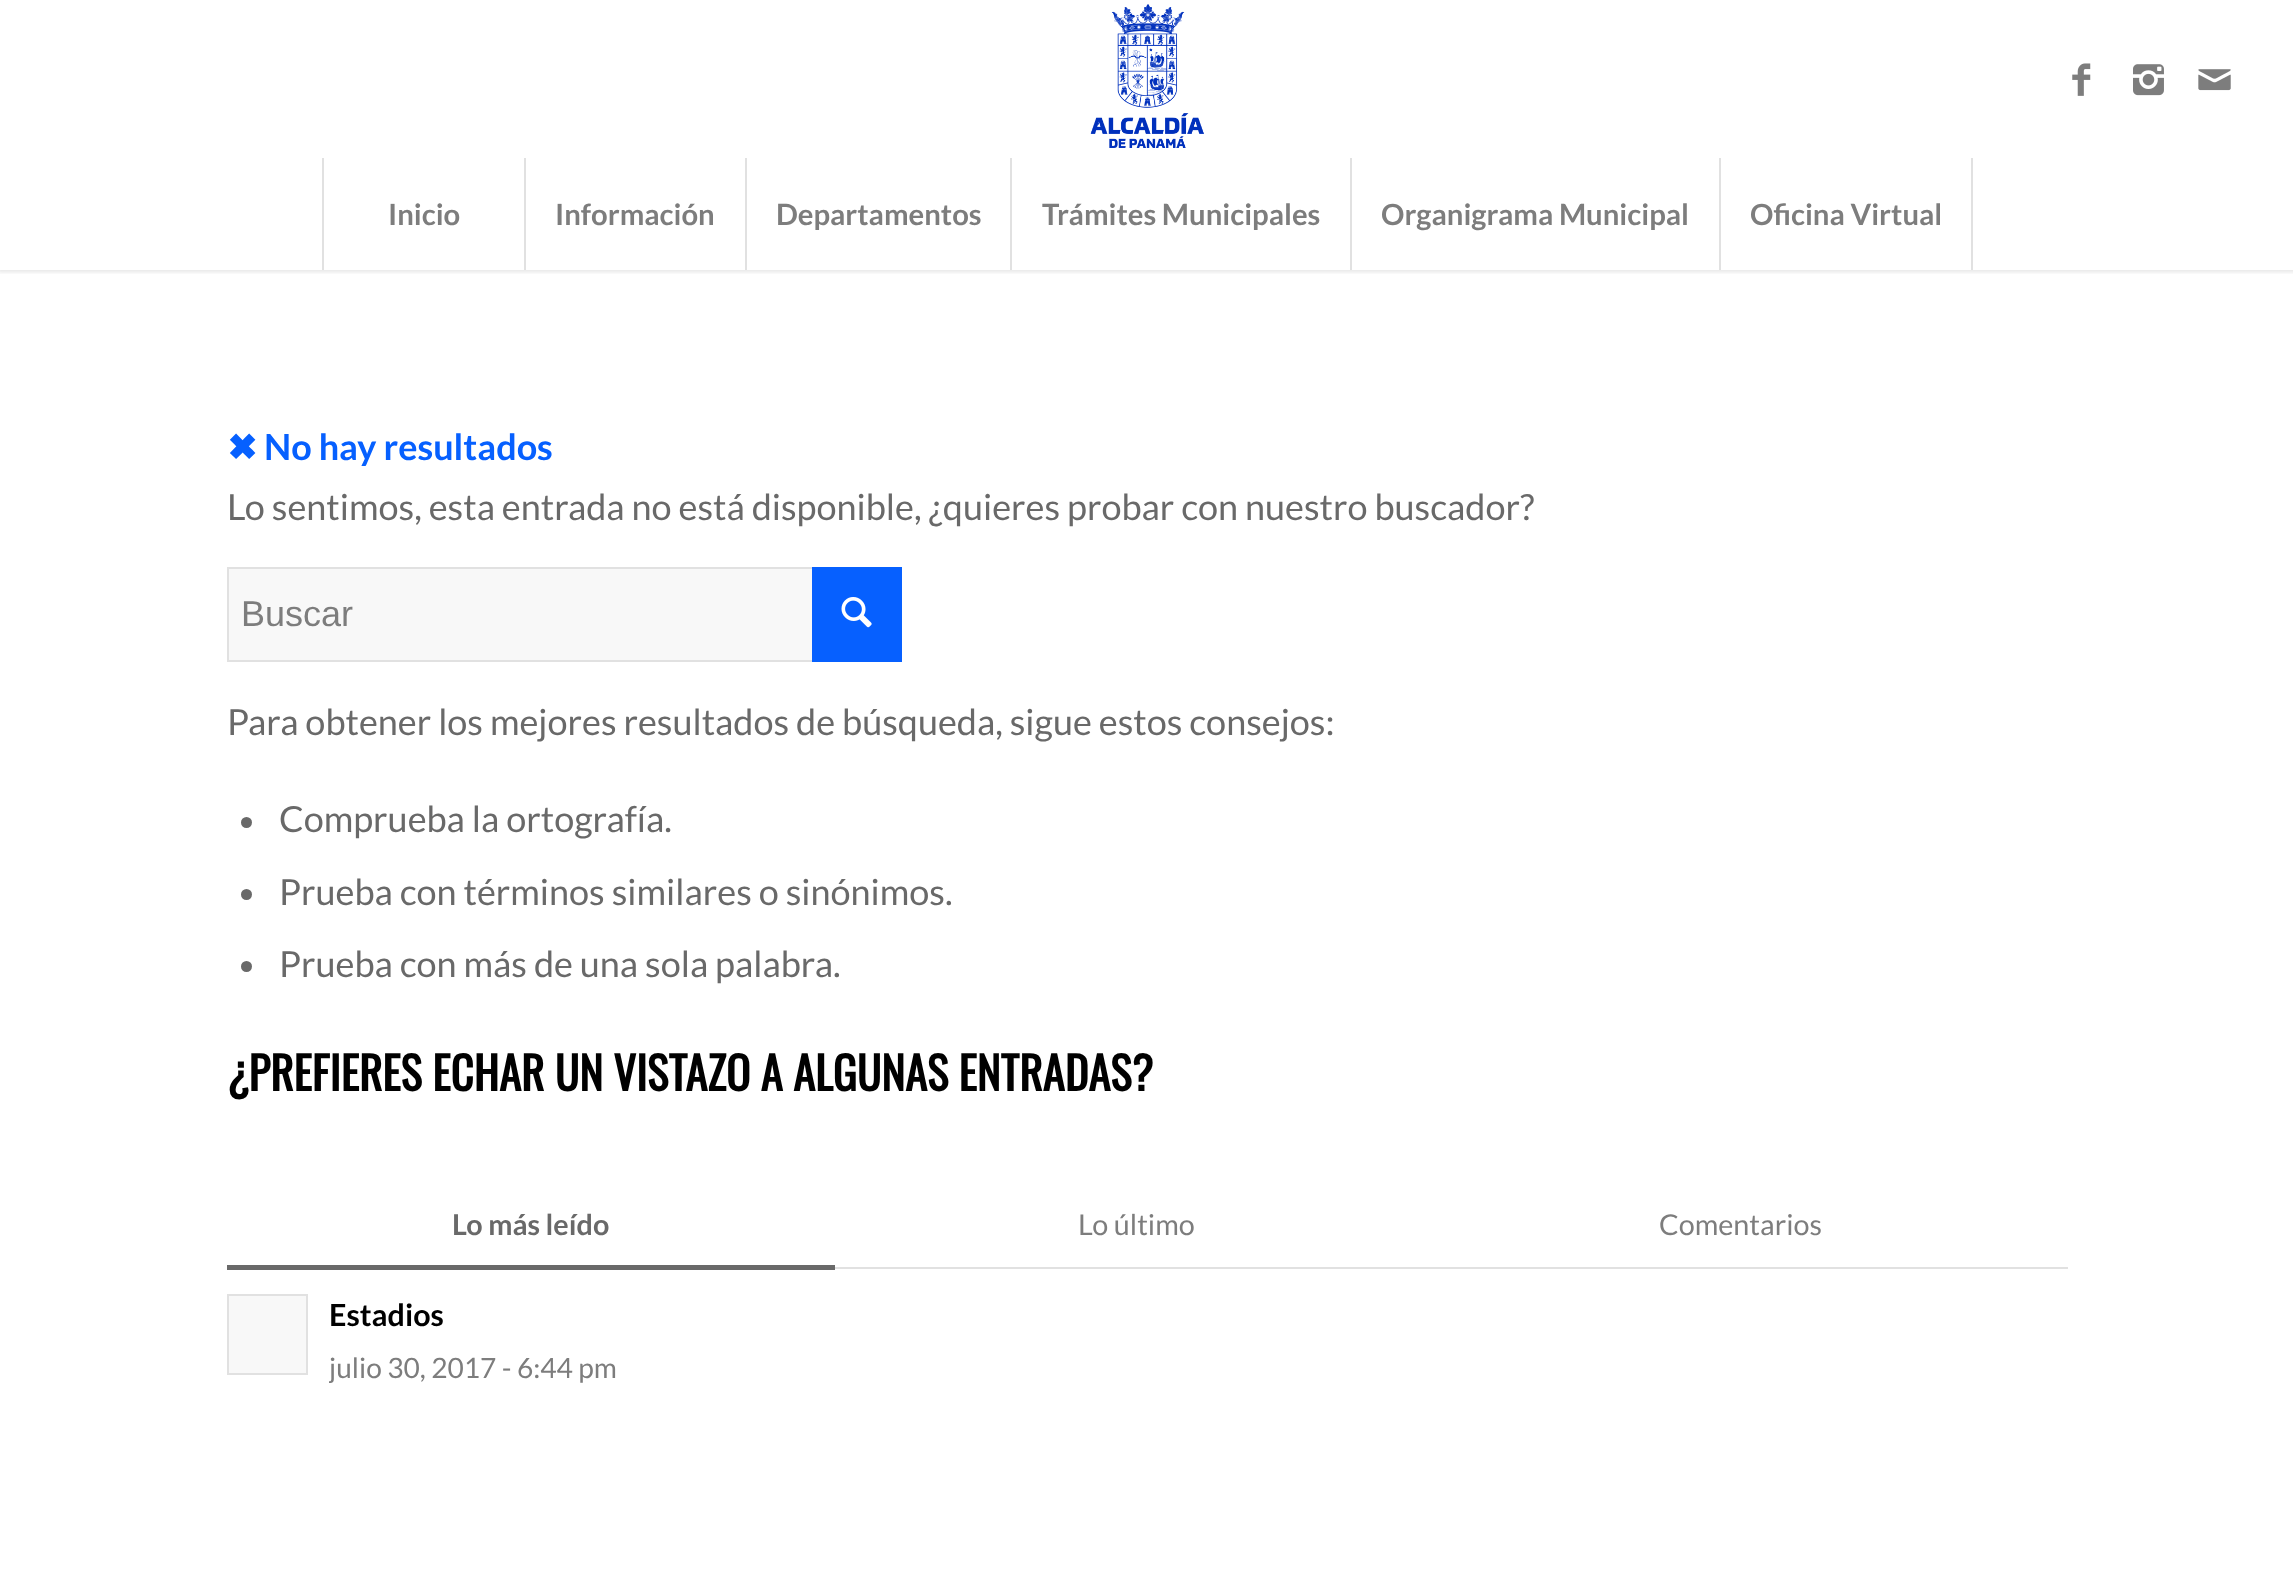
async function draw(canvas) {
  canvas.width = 2293
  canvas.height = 1572
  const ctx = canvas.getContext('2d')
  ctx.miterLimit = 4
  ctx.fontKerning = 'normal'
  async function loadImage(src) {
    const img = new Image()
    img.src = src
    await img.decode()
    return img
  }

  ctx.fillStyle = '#fff'
  ctx.fillRect(0, 0, 2293, 1572)
  ctx.save()
  ctx.beginPath()
  ctx.rect(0, 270, 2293, 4)
  ctx.clip()
  ctx.fillStyle = '#0000001a'
  ctx.filter = 'blur(2px)'
  ctx.beginPath()
  ctx.rect(-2, -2, 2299, 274)
  ctx.fill()
  ctx.filter = 'none'
  ctx.restore()
  ctx.drawImage(await loadImage('image0.png'), 1090, 4, 114, 144)
  ctx.drawImage(await loadImage('image1.png'), 2072, 63, 19, 33)
  ctx.drawImage(await loadImage('image2.png'), 2133, 64, 31, 32)
  ctx.drawImage(await loadImage('image3.png'), 2198, 69, 33, 22)
  ctx.fillStyle = '#e1e1e1'
  ctx.fillRect(322, 158, 2, 112)
  ctx.font = 'bold 29.25px Lato'
  ctx.fillStyle = '#7d7d7d'
  ctx.fillText('Inicio', 388, 225)
  ctx.fillStyle = '#e1e1e1'
  ctx.fillRect(524, 158, 2, 112)
  ctx.fillStyle = '#7d7d7d'
  ctx.fillText('Información', 555, 225)
  ctx.fillStyle = '#e1e1e1'
  ctx.fillRect(745, 158, 2, 112)
  ctx.fillStyle = '#7d7d7d'
  ctx.fillText('Departamentos', 776, 225)
  ctx.fillStyle = '#e1e1e1'
  ctx.fillRect(1010, 158, 2, 112)
  ctx.fillStyle = '#7d7d7d'
  ctx.fillText('Trámites Municipales', 1042, 225)
  ctx.fillStyle = '#e1e1e1'
  ctx.fillRect(1350, 158, 2, 112)
  ctx.fillStyle = '#7d7d7d'
  ctx.fillText('Organigrama Municipal', 1381, 225)
  ctx.fillStyle = '#e1e1e1'
  ctx.fillRect(1971, 158, 2, 112)
  ctx.fillRect(1719, 158, 2, 112)
  ctx.fillStyle = '#7d7d7d'
  ctx.fillText('Oficina Virtual', 1750, 225)
  ctx.font = 'bold 36px DejaVu Sans'
  ctx.fillStyle = '#0660ff'
  ctx.fillText('✖', 227, 460)
  ctx.font = 'bold 36px Lato'
  ctx.fillText('No hay resultados', 264, 460)
  ctx.font = '36px Lato'
  ctx.fillStyle = '#696969'
  ctx.fillText('Lo sentimos, esta entrada no está disponible, ¿quieres probar con nuestro buscador?', 227, 520)
  ctx.fillStyle = '#f8f8f8'
  ctx.fillRect(229, 569, 583, 91)
  ctx.strokeStyle = '#e1e1e1'
  ctx.lineWidth = 2
  ctx.strokeRect(228, 568, 673, 93)
  ctx.font = '36px Liberation Sans'
  ctx.fillStyle = '#7d7d7d'
  ctx.fillText('Buscar', 241, 626)
  ctx.fillStyle = '#0660ff'
  ctx.fillRect(812, 567, 90, 95)
  ctx.drawImage(await loadImage('image4.png'), 841, 597, 31, 31)
  ctx.font = '36px Lato'
  ctx.fillStyle = '#696969'
  ctx.fillText('Para obtener los mejores resultados de búsqueda, sigue estos consejos:', 227, 735)
  ctx.beginPath()
  ctx.arc(246.5, 822.5, 5.5, 0, 2 * Math.PI)
  ctx.fill()
  ctx.fillText('Comprueba la ortografía.', 279, 832)
  ctx.beginPath()
  ctx.arc(246.5, 894.5, 5.5, 0, 2 * Math.PI)
  ctx.fill()
  ctx.fillText('Prueba con términos similares o sinónimos.', 279, 905)
  ctx.beginPath()
  ctx.arc(246.5, 966.5, 5.5, 0, 2 * Math.PI)
  ctx.fill()
  ctx.fillText('Prueba con más de una sola palabra.', 279, 977)
  ctx.font = 'bold 45px Oswald'
  ctx.fillStyle = '#000'
  ctx.fillText('¿PREFIERES ECHAR UN VISTAZO A ALGUNAS ENTRADAS?', 227, 1091)
  ctx.fillStyle = '#e1e1e1'
  ctx.fillRect(835, 1267, 1233, 2)
  ctx.fillStyle = '#696969'
  ctx.fillRect(227, 1265, 608, 5)
  ctx.font = 'bold 28.75px Lato'
  ctx.fillText('Lo más leído', 452, 1235)
  ctx.font = '28.75px Lato'
  ctx.fillStyle = '#7d7d7d'
  ctx.fillText('Lo último', 1078, 1235)
  ctx.fillText('Comentarios', 1659, 1235)
  ctx.fillStyle = '#f8f8f8'
  ctx.beginPath()
  ctx.rect(228, 1295, 79, 79)
  ctx.fill()
  ctx.stroke()
  ctx.font = 'bold 30.5px Lato'
  ctx.fillStyle = '#000'
  ctx.fillText('Estadios', 329, 1326)
  ctx.save()
  ctx.beginPath()
  ctx.rect(329, 1289, 1739, 104)
  ctx.clip()
  ctx.font = '28.1px Lato'
  ctx.fillStyle = '#7d7d7d'
  ctx.fillText('julio 30, 2017 - 6:44 pm', 329, 1378)
  ctx.restore()
}

draw(document.querySelector('canvas'))
